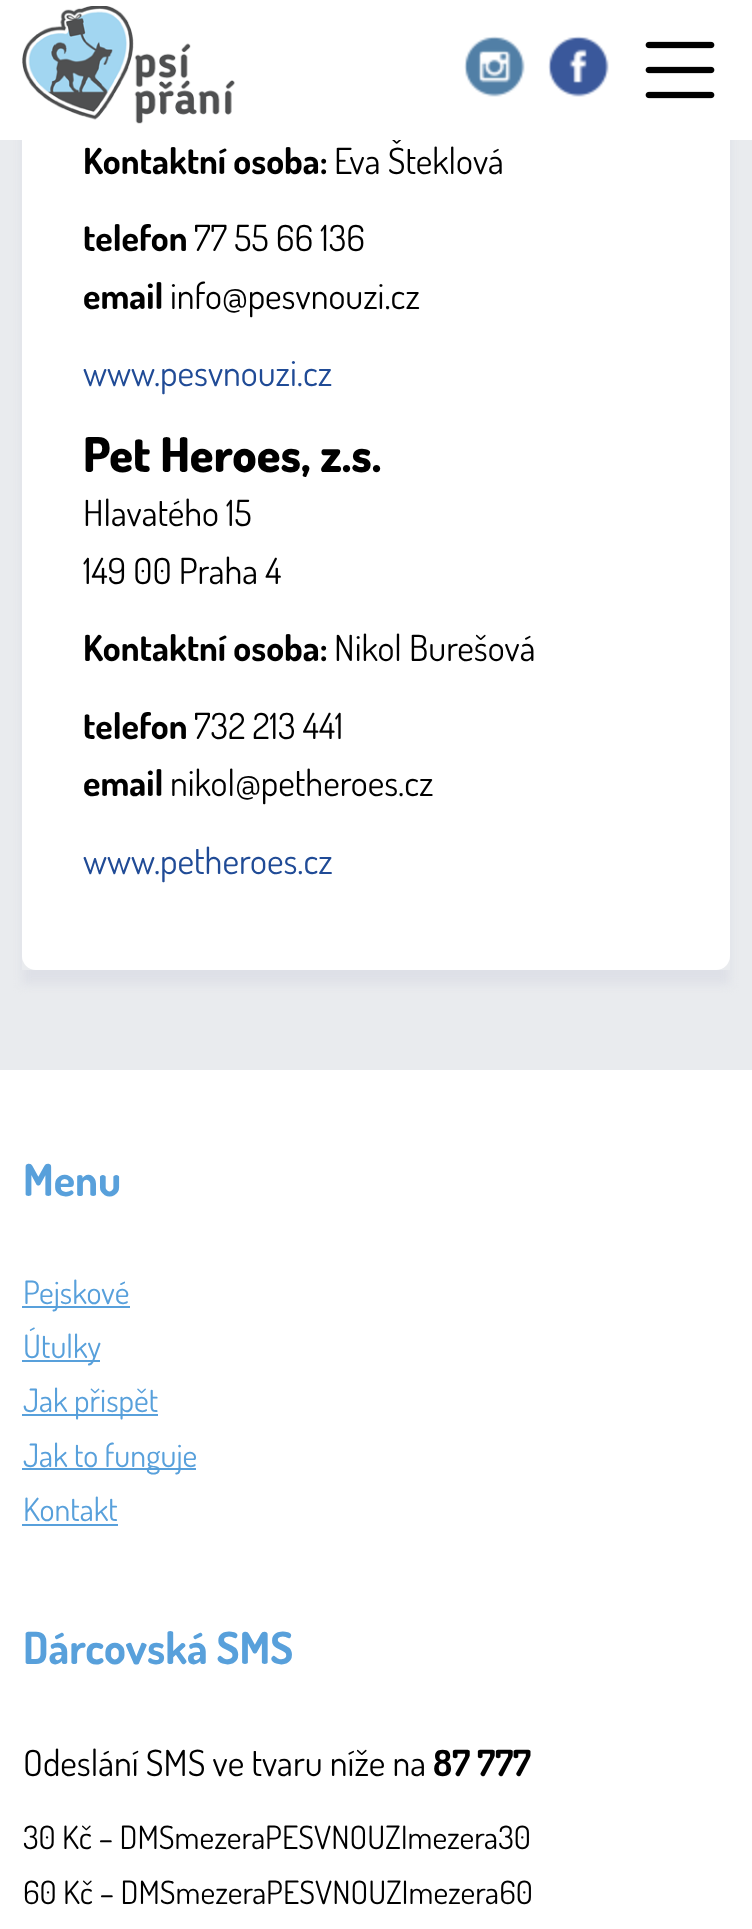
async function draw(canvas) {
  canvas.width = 752
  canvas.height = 1929
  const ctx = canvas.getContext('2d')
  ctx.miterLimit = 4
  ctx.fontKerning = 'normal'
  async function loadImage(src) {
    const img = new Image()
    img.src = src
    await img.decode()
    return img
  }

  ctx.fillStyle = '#e9ebee'
  ctx.fillRect(0, 0, 752, 1929)
  ctx.fillStyle = '#fff'
  ctx.beginPath()
  ctx.roundRect(22, -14, 708, 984, 14)
  ctx.fill()
  ctx.save()
  ctx.beginPath()
  ctx.moveTo(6, 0)
  ctx.lineTo(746, 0)
  ctx.lineTo(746, 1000)
  ctx.lineTo(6, 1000)
  ctx.closePath()
  ctx.moveTo(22, -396)
  ctx.lineTo(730, -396)
  ctx.lineTo(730, 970)
  ctx.lineTo(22, 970)
  ctx.closePath()
  ctx.clip('evenodd')
  ctx.fillStyle = '#dee0e7'
  ctx.filter = 'blur(5px)'
  ctx.beginPath()
  ctx.rect(22, -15, 708, 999)
  ctx.fill()
  ctx.filter = 'none'
  ctx.restore()
  ctx.font = '36px Dosis'
  ctx.fillStyle = '#000'
  ctx.fillText('Eva Šteklová', 334, 174)
  ctx.fillStyle = '#fff'
  ctx.fillRect(0, 0, 752, 140)
  ctx.drawImage(await loadImage('image0.png'), 22, 6, 213, 118)
  ctx.drawImage(await loadImage('image1.png'), 464, 36, 61, 61)
  ctx.drawImage(await loadImage('image2.png'), 548, 36, 61, 61)
  ctx.drawImage(await loadImage('image3.png'), 645, 41, 70, 58)
  ctx.font = 'bold 36px Dosis'
  ctx.fillStyle = '#000'
  ctx.fillText('Kontaktní osoba:', 83, 174)
  ctx.fillText('telefon', 83, 251)
  ctx.font = '36px Dosis'
  ctx.fillText('77 55 66 136', 194, 251)
  ctx.font = 'bold 36px Dosis'
  ctx.fillText('email', 83, 309)
  ctx.font = '36px Dosis'
  ctx.fillText('info@pesvnouzi.cz', 170, 309)
  ctx.fillStyle = '#204b96'
  ctx.fillText('www.pesvnouzi.cz', 83, 386)
  ctx.font = '800 48px Dosis'
  ctx.fillStyle = '#000'
  ctx.fillText('Pet Heroes, z.s.', 83, 472)
  ctx.font = '36px Dosis'
  ctx.fillText('Hlavatého 15', 83, 526)
  ctx.fillText('149 00 Praha 4', 83, 584)
  ctx.font = 'bold 36px Dosis'
  ctx.fillText('Kontaktní osoba:', 83, 661)
  ctx.font = '36px Dosis'
  ctx.fillText('Nikol Burešová', 334, 661)
  ctx.font = 'bold 36px Dosis'
  ctx.fillText('telefon', 83, 739)
  ctx.font = '36px Dosis'
  ctx.fillText('732 213 441', 194, 739)
  ctx.font = 'bold 36px Dosis'
  ctx.fillText('email', 83, 796)
  ctx.font = '36px Dosis'
  ctx.fillText('nikol@petheroes.cz', 170, 796)
  ctx.fillStyle = '#204b96'
  ctx.fillText('www.petheroes.cz', 83, 874)
  ctx.fillStyle = '#fff'
  ctx.fillRect(0, 1070, 752, 859)
  ctx.font = 'bold 44px Dosis'
  ctx.fillStyle = '#58a0db'
  ctx.fillText('Menu', 23, 1196)
  ctx.fillRect(22, 1306, 108, 2)
  ctx.font = '32px Dosis'
  ctx.fillText('Pejskové', 23, 1304)
  ctx.fillRect(22, 1360, 78, 2)
  ctx.fillText('Útulky', 23, 1358)
  ctx.fillRect(22, 1414, 136, 2)
  ctx.fillText('Jak přispět', 23, 1412)
  ctx.fillRect(22, 1468, 174, 2)
  ctx.fillText('Jak to funguje', 23, 1467)
  ctx.fillText('Kontakt', 23, 1521)
  ctx.fillRect(22, 1524, 96, 2)
  ctx.font = 'bold 44px Dosis'
  ctx.fillText('Dárcovská SMS', 23, 1664)
  ctx.font = '36px Dosis'
  ctx.fillStyle = '#000'
  ctx.fillText('Odeslání SMS ve tvaru níže na', 23, 1776)
  ctx.font = 'bold 36px Dosis'
  ctx.fillText('87 777', 433, 1776)
  ctx.font = '32px Dosis'
  ctx.fillText('30 Kč – DMSmezeraPESVNOUZImezera30', 23, 1849)
  ctx.fillText('60 Kč – DMSmezeraPESVNOUZImezera60', 23, 1904)
}

draw(document.querySelector('canvas'))
